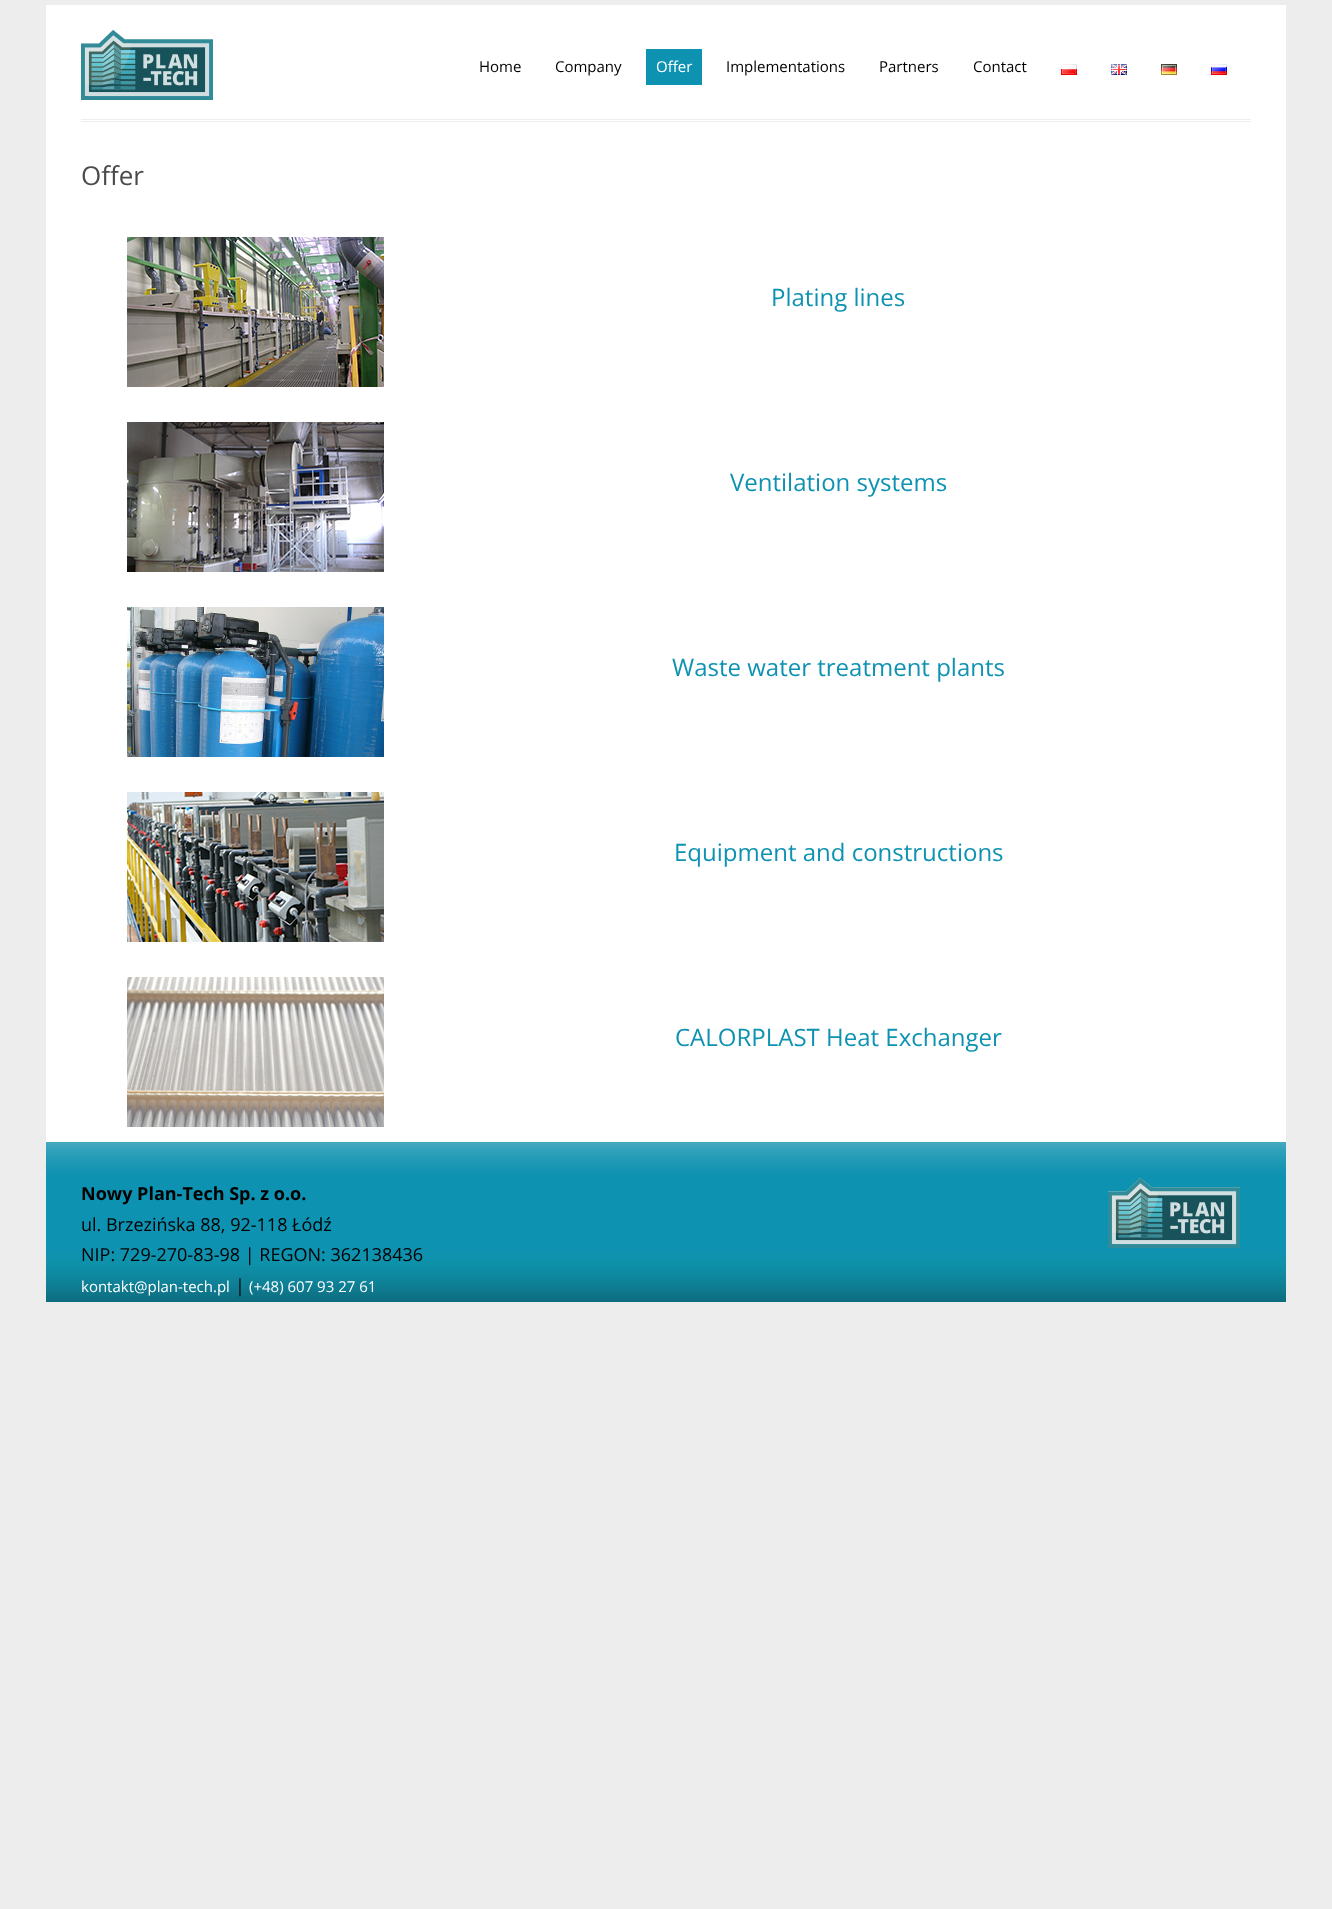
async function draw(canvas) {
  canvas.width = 1332
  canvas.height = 1909
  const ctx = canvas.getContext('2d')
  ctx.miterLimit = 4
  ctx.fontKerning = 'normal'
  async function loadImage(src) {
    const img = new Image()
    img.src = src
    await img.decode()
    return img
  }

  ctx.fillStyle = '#ededed'
  ctx.fillRect(0, 0, 1332, 1909)
  ctx.fillStyle = '#fff'
  ctx.fillRect(46, 5, 1240, 1137)
  ctx.fillStyle = '#eee'
  ctx.fillRect(81, 119, 1170, 1)
  ctx.fillRect(81, 121, 1170, 1)
  ctx.drawImage(await loadImage('image0.png'), 81, 30, 132, 70)
  ctx.font = '15px Open Sans'
  ctx.fillStyle = '#000'
  ctx.fillText('Home', 479, 72)
  ctx.fillText('Company', 555, 72)
  ctx.fillStyle = '#0e92b1'
  ctx.fillRect(646, 49, 56, 36)
  ctx.fillStyle = '#fff'
  ctx.fillText('Offer', 656, 72)
  ctx.fillStyle = '#000'
  ctx.fillText('Implementations', 726, 72)
  ctx.fillText('Partners', 879, 72)
  ctx.fillText('Contact', 973, 72)
  ctx.drawImage(await loadImage('image1.png'), 1061, 64, 16, 11)
  ctx.drawImage(await loadImage('image2.png'), 1111, 64, 16, 11)
  ctx.drawImage(await loadImage('image3.png'), 1161, 64, 16, 11)
  ctx.drawImage(await loadImage('image4.png'), 1211, 64, 16, 11)
  ctx.font = '26px Open Sans'
  ctx.fillStyle = '#4a4a4a'
  ctx.fillText('Offer', 81, 185)
  ctx.drawImage(await loadImage('image5.png'), 127, 237, 257, 150)
  ctx.font = '24px Open Sans'
  ctx.fillStyle = '#0e92b2'
  ctx.fillText('Plating lines', 771, 306)
  ctx.drawImage(await loadImage('image6.png'), 127, 422, 257, 150)
  ctx.fillText('Ventilation systems', 730, 491)
  ctx.drawImage(await loadImage('image7.png'), 127, 607, 257, 150)
  ctx.fillText('Waste water treatment plants', 672, 676)
  ctx.drawImage(await loadImage('image8.png'), 127, 792, 257, 150)
  ctx.fillText('Equipment and constructions', 674, 861)
  ctx.drawImage(await loadImage('image9.png'), 127, 977, 257, 150)
  ctx.fillText('CALORPLAST Heat Exchanger', 675, 1046)
  ctx.drawImage(await loadImage('image10.png'), 46, 1142, 1240, 160)
  ctx.font = 'bold 18px Open Sans'
  ctx.fillStyle = '#000'
  ctx.fillText('Nowy Plan-Tech Sp. z o.o.', 81, 1200)
  ctx.font = '18px Open Sans'
  ctx.fillText('ul. Brzezińska 88, 92-118 Łódź', 81, 1231)
  ctx.fillText('NIP: 729-270-83-98 | REGON: 362138436', 81, 1261)
  ctx.font = '15px Open Sans'
  ctx.fillStyle = '#fff'
  ctx.fillText('kontakt@plan-tech.pl', 81, 1292)
  ctx.font = '18px Open Sans'
  ctx.fillStyle = '#000'
  ctx.fillText('|', 235, 1292)
  ctx.font = '15px Open Sans'
  ctx.fillStyle = '#fff'
  ctx.fillText('(+48) 607 93 27 61', 249, 1292)
  ctx.drawImage(await loadImage('image11.png'), 1108, 1178, 132, 70)
}

draw(document.querySelector('canvas'))
